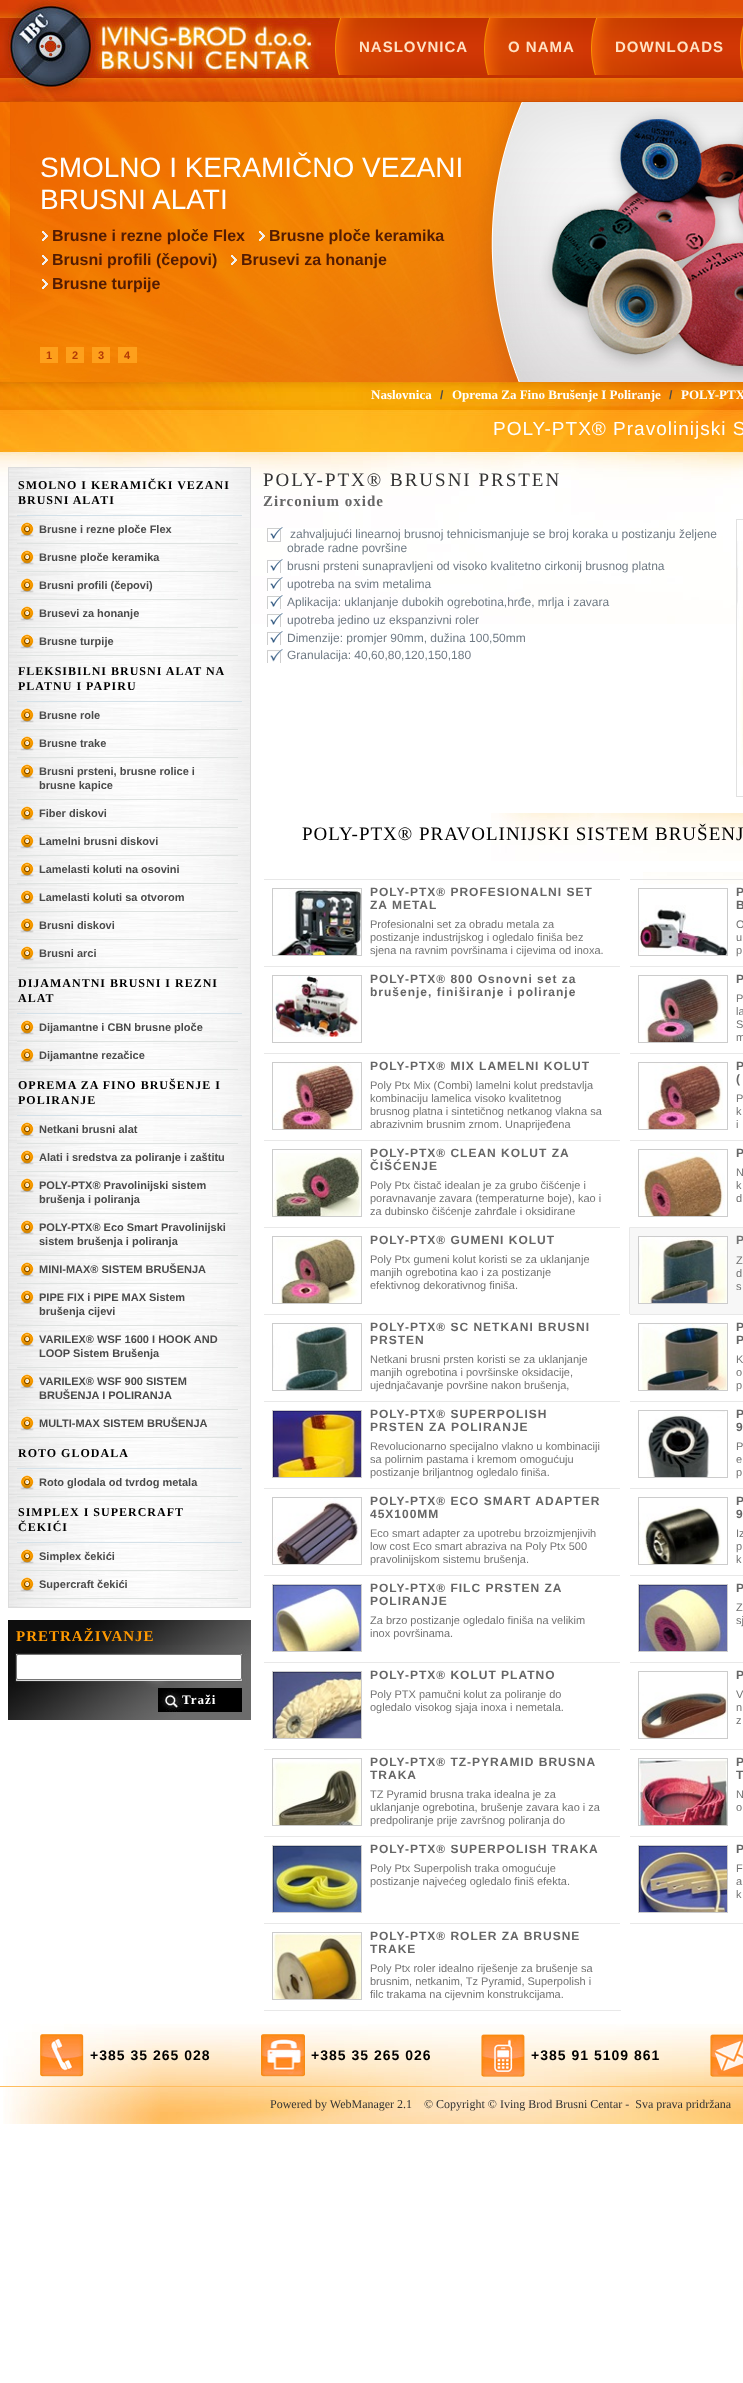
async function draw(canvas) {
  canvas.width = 743
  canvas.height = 2383
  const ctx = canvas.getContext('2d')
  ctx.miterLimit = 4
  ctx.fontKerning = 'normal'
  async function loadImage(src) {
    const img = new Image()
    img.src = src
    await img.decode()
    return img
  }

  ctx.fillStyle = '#fff'
  ctx.fillRect(0, 0, 743, 2383)
  ctx.drawImage(await loadImage('image0.png'), 0, 101, 743, 523)
  ctx.drawImage(await loadImage('image1.png'), 0, 0, 743, 78)
  ctx.drawImage(await loadImage('image2.png'), 335, 18, 149, 57)
  ctx.letterSpacing = '1px'
  ctx.font = 'bold 15px Liberation Sans'
  ctx.fillStyle = '#ffe2c4'
  ctx.fillText('NASLOVNICA', 359, 52)
  ctx.drawImage(await loadImage('image3.png'), 484, 18, 107, 57)
  ctx.fillText('O NAMA', 508, 52)
  ctx.drawImage(await loadImage('image4.png'), 591, 18, 149, 57)
  ctx.fillText('DOWNLOADS', 615, 52)
  ctx.drawImage(await loadImage('image5.png'), 740, 25, 3, 47)
  ctx.drawImage(await loadImage('image6.png'), 0, 78, 743, 23)
  ctx.drawImage(await loadImage('image7.png'), 10, 102, 733, 280)
  ctx.letterSpacing = '0px'
  ctx.font = '28px Liberation Sans'
  ctx.fillStyle = '#fff'
  ctx.fillText('SMOLNO I KERAMIČNO VEZANI', 40, 177)
  ctx.fillText('BRUSNI ALATI', 40, 209)
  ctx.drawImage(await loadImage('image8.png'), 42, 231, 6, 10)
  ctx.font = 'bold 16px Liberation Sans'
  ctx.fillStyle = '#521b03'
  ctx.fillText('Brusne i rezne ploče Flex', 52, 241)
  ctx.drawImage(await loadImage('image9.png'), 259, 231, 6, 10)
  ctx.fillText('Brusne ploče keramika', 269, 241)
  ctx.drawImage(await loadImage('image10.png'), 42, 255, 6, 10)
  ctx.fillText('Brusni profili (čepovi)', 52, 265)
  ctx.drawImage(await loadImage('image11.png'), 231, 255, 6, 10)
  ctx.fillText('Brusevi za honanje', 241, 265)
  ctx.drawImage(await loadImage('image12.png'), 42, 279, 6, 10)
  ctx.fillText('Brusne turpije', 52, 289)
  ctx.fillStyle = '#fea01c'
  ctx.fillRect(40, 347, 18, 16)
  ctx.font = 'bold 11px Liberation Sans'
  ctx.fillStyle = '#b33a06'
  ctx.fillText('1', 46, 359)
  ctx.fillStyle = '#fea01c'
  ctx.fillRect(66, 347, 18, 16)
  ctx.fillStyle = '#b33a06'
  ctx.fillText('2', 72, 359)
  ctx.fillStyle = '#fea01c'
  ctx.fillRect(92, 347, 18, 16)
  ctx.fillStyle = '#b33a06'
  ctx.fillText('3', 98, 359)
  ctx.fillStyle = '#fea01c'
  ctx.fillRect(118, 347, 19, 16)
  ctx.fillStyle = '#b33a06'
  ctx.fillText('4', 124, 359)
  ctx.drawImage(await loadImage('image13.png'), 9, 468, 241, 1139)
  ctx.strokeStyle = '#dcdcdc'
  ctx.strokeRect(8.5, 467.5, 242, 1140)
  ctx.fillStyle = '#d4e1e9'
  ctx.fillRect(17, 515, 225, 1)
  ctx.letterSpacing = '1px'
  ctx.font = 'bold 12px Liberation Serif'
  ctx.fillStyle = '#000'
  ctx.fillText('SMOLNO I KERAMIČKI VEZANI', 18, 489)
  ctx.fillText('BRUSNI ALATI', 18, 504)
  ctx.drawImage(await loadImage('image14.png'), 20, 522, 14, 15)
  ctx.fillStyle = '#dfe3e1'
  ctx.fillRect(17, 543, 221, 1)
  ctx.letterSpacing = '0px'
  ctx.font = 'bold 11px Liberation Sans'
  ctx.fillStyle = '#4a4a4a'
  ctx.fillText('Brusne i rezne ploče Flex', 39, 533)
  ctx.drawImage(await loadImage('image15.png'), 20, 550, 14, 15)
  ctx.fillStyle = '#dfe3e1'
  ctx.fillRect(17, 571, 221, 1)
  ctx.fillStyle = '#4a4a4a'
  ctx.fillText('Brusne ploče keramika', 39, 561)
  ctx.drawImage(await loadImage('image16.png'), 20, 578, 14, 15)
  ctx.fillStyle = '#dfe3e1'
  ctx.fillRect(17, 599, 221, 1)
  ctx.fillStyle = '#4a4a4a'
  ctx.fillText('Brusni profili (čepovi)', 39, 589)
  ctx.drawImage(await loadImage('image17.png'), 20, 606, 14, 15)
  ctx.fillStyle = '#dfe3e1'
  ctx.fillRect(17, 627, 221, 1)
  ctx.fillStyle = '#4a4a4a'
  ctx.fillText('Brusevi za honanje', 39, 617)
  ctx.drawImage(await loadImage('image18.png'), 20, 634, 14, 15)
  ctx.fillStyle = '#dfe3e1'
  ctx.fillRect(17, 655, 221, 1)
  ctx.fillStyle = '#4a4a4a'
  ctx.fillText('Brusne turpije', 39, 645)
  ctx.fillStyle = '#d4e1e9'
  ctx.fillRect(17, 701, 225, 1)
  ctx.letterSpacing = '1px'
  ctx.font = 'bold 12px Liberation Serif'
  ctx.fillStyle = '#000'
  ctx.fillText('FLEKSIBILNI BRUSNI ALAT NA', 18, 675)
  ctx.fillText('PLATNU I PAPIRU', 18, 690)
  ctx.drawImage(await loadImage('image19.png'), 20, 708, 14, 15)
  ctx.fillStyle = '#dfe3e1'
  ctx.fillRect(17, 729, 221, 1)
  ctx.letterSpacing = '0px'
  ctx.font = 'bold 11px Liberation Sans'
  ctx.fillStyle = '#4a4a4a'
  ctx.fillText('Brusne role', 39, 719)
  ctx.drawImage(await loadImage('image20.png'), 20, 736, 14, 15)
  ctx.fillStyle = '#dfe3e1'
  ctx.fillRect(17, 757, 221, 1)
  ctx.fillStyle = '#4a4a4a'
  ctx.fillText('Brusne trake', 39, 747)
  ctx.drawImage(await loadImage('image21.png'), 20, 764, 14, 15)
  ctx.fillStyle = '#dfe3e1'
  ctx.fillRect(17, 799, 221, 1)
  ctx.fillStyle = '#4a4a4a'
  ctx.fillText('Brusni prsteni, brusne rolice i', 39, 775)
  ctx.fillText('brusne kapice', 39, 789)
  ctx.drawImage(await loadImage('image22.png'), 20, 806, 14, 15)
  ctx.fillStyle = '#dfe3e1'
  ctx.fillRect(17, 827, 221, 1)
  ctx.fillStyle = '#4a4a4a'
  ctx.fillText('Fiber diskovi', 39, 817)
  ctx.drawImage(await loadImage('image23.png'), 20, 834, 14, 15)
  ctx.fillStyle = '#dfe3e1'
  ctx.fillRect(17, 855, 221, 1)
  ctx.fillStyle = '#4a4a4a'
  ctx.fillText('Lamelni brusni diskovi', 39, 845)
  ctx.drawImage(await loadImage('image24.png'), 20, 862, 14, 15)
  ctx.fillStyle = '#dfe3e1'
  ctx.fillRect(17, 883, 221, 1)
  ctx.fillStyle = '#4a4a4a'
  ctx.fillText('Lamelasti koluti na osovini', 39, 873)
  ctx.drawImage(await loadImage('image25.png'), 20, 890, 14, 15)
  ctx.fillStyle = '#dfe3e1'
  ctx.fillRect(17, 911, 221, 1)
  ctx.fillStyle = '#4a4a4a'
  ctx.fillText('Lamelasti koluti sa otvorom', 39, 901)
  ctx.drawImage(await loadImage('image26.png'), 20, 918, 14, 15)
  ctx.fillStyle = '#dfe3e1'
  ctx.fillRect(17, 939, 221, 1)
  ctx.fillStyle = '#4a4a4a'
  ctx.fillText('Brusni diskovi', 39, 929)
  ctx.drawImage(await loadImage('image27.png'), 20, 946, 14, 15)
  ctx.fillStyle = '#dfe3e1'
  ctx.fillRect(17, 967, 221, 1)
  ctx.fillStyle = '#4a4a4a'
  ctx.fillText('Brusni arci', 39, 957)
  ctx.fillStyle = '#d4e1e9'
  ctx.fillRect(17, 1013, 225, 1)
  ctx.letterSpacing = '1px'
  ctx.font = 'bold 12px Liberation Serif'
  ctx.fillStyle = '#000'
  ctx.fillText('DIJAMANTNI BRUSNI I REZNI', 18, 987)
  ctx.fillText('ALAT', 18, 1002)
  ctx.drawImage(await loadImage('image28.png'), 20, 1020, 14, 15)
  ctx.fillStyle = '#dfe3e1'
  ctx.fillRect(17, 1041, 221, 1)
  ctx.letterSpacing = '0px'
  ctx.font = 'bold 11px Liberation Sans'
  ctx.fillStyle = '#4a4a4a'
  ctx.fillText('Dijamantne i CBN brusne ploče', 39, 1031)
  ctx.drawImage(await loadImage('image29.png'), 20, 1048, 14, 15)
  ctx.fillStyle = '#dfe3e1'
  ctx.fillRect(17, 1069, 221, 1)
  ctx.fillStyle = '#4a4a4a'
  ctx.fillText('Dijamantne rezačice', 39, 1059)
  ctx.fillStyle = '#d4e1e9'
  ctx.fillRect(17, 1115, 225, 1)
  ctx.letterSpacing = '1px'
  ctx.font = 'bold 12px Liberation Serif'
  ctx.fillStyle = '#000'
  ctx.fillText('OPREMA ZA FINO BRUŠENJE I', 18, 1089)
  ctx.fillText('POLIRANJE', 18, 1104)
  ctx.drawImage(await loadImage('image30.png'), 20, 1122, 14, 15)
  ctx.fillStyle = '#dfe3e1'
  ctx.fillRect(17, 1143, 221, 1)
  ctx.letterSpacing = '0px'
  ctx.font = 'bold 11px Liberation Sans'
  ctx.fillStyle = '#4a4a4a'
  ctx.fillText('Netkani brusni alat', 39, 1133)
  ctx.drawImage(await loadImage('image31.png'), 20, 1150, 14, 15)
  ctx.fillStyle = '#dfe3e1'
  ctx.fillRect(17, 1171, 221, 1)
  ctx.fillStyle = '#4a4a4a'
  ctx.fillText('Alati i sredstva za poliranje i zaštitu', 39, 1161)
  ctx.drawImage(await loadImage('image32.png'), 20, 1178, 14, 15)
  ctx.fillStyle = '#dfe3e1'
  ctx.fillRect(17, 1213, 221, 1)
  ctx.fillStyle = '#4a4a4a'
  ctx.fillText('POLY-PTX® Pravolinijski sistem', 39, 1189)
  ctx.fillText('brušenja i poliranja', 39, 1203)
  ctx.drawImage(await loadImage('image33.png'), 20, 1220, 14, 15)
  ctx.fillStyle = '#dfe3e1'
  ctx.fillRect(17, 1255, 221, 1)
  ctx.fillStyle = '#4a4a4a'
  ctx.fillText('POLY-PTX® Eco Smart Pravolinijski', 39, 1231)
  ctx.fillText('sistem brušenja i poliranja', 39, 1245)
  ctx.drawImage(await loadImage('image34.png'), 20, 1262, 14, 15)
  ctx.fillStyle = '#dfe3e1'
  ctx.fillRect(17, 1283, 221, 1)
  ctx.fillStyle = '#4a4a4a'
  ctx.fillText('MINI-MAX® SISTEM BRUŠENJA', 39, 1273)
  ctx.drawImage(await loadImage('image19.png'), 20, 1290, 14, 15)
  ctx.fillStyle = '#dfe3e1'
  ctx.fillRect(17, 1325, 221, 1)
  ctx.fillStyle = '#4a4a4a'
  ctx.fillText('PIPE FIX i PIPE MAX Sistem', 39, 1301)
  ctx.fillText('brušenja cijevi', 39, 1315)
  ctx.drawImage(await loadImage('image35.png'), 20, 1332, 14, 15)
  ctx.fillStyle = '#dfe3e1'
  ctx.fillRect(17, 1367, 221, 1)
  ctx.fillStyle = '#4a4a4a'
  ctx.fillText('VARILEX® WSF 1600 I HOOK AND', 39, 1343)
  ctx.fillText('LOOP Sistem Brušenja', 39, 1357)
  ctx.drawImage(await loadImage('image36.png'), 20, 1374, 14, 15)
  ctx.fillStyle = '#dfe3e1'
  ctx.fillRect(17, 1409, 221, 1)
  ctx.fillStyle = '#4a4a4a'
  ctx.fillText('VARILEX® WSF 900 SISTEM', 39, 1385)
  ctx.fillText('BRUŠENJA I POLIRANJA', 39, 1399)
  ctx.drawImage(await loadImage('image23.png'), 20, 1416, 14, 15)
  ctx.fillStyle = '#dfe3e1'
  ctx.fillRect(17, 1437, 221, 1)
  ctx.fillStyle = '#4a4a4a'
  ctx.fillText('MULTI-MAX SISTEM BRUŠENJA', 39, 1427)
  ctx.fillStyle = '#d4e1e9'
  ctx.fillRect(17, 1468, 225, 1)
  ctx.letterSpacing = '1px'
  ctx.font = 'bold 12px Liberation Serif'
  ctx.fillStyle = '#000'
  ctx.fillText('ROTO GLODALA', 18, 1457)
  ctx.drawImage(await loadImage('image37.png'), 20, 1475, 14, 15)
  ctx.fillStyle = '#dfe3e1'
  ctx.fillRect(17, 1496, 221, 1)
  ctx.letterSpacing = '0px'
  ctx.font = 'bold 11px Liberation Sans'
  ctx.fillStyle = '#4a4a4a'
  ctx.fillText('Roto glodala od tvrdog metala', 39, 1486)
  ctx.fillStyle = '#d4e1e9'
  ctx.fillRect(17, 1542, 225, 1)
  ctx.letterSpacing = '1px'
  ctx.font = 'bold 12px Liberation Serif'
  ctx.fillStyle = '#000'
  ctx.fillText('SIMPLEX I SUPERCRAFT', 18, 1516)
  ctx.fillText('ČEKIĆI', 18, 1531)
  ctx.drawImage(await loadImage('image38.png'), 20, 1549, 14, 15)
  ctx.fillStyle = '#dfe3e1'
  ctx.fillRect(17, 1570, 221, 1)
  ctx.letterSpacing = '0px'
  ctx.font = 'bold 11px Liberation Sans'
  ctx.fillStyle = '#4a4a4a'
  ctx.fillText('Simplex čekići', 39, 1560)
  ctx.drawImage(await loadImage('image39.png'), 20, 1577, 14, 15)
  ctx.fillStyle = '#dfe3e1'
  ctx.fillRect(17, 1598, 221, 1)
  ctx.fillStyle = '#4a4a4a'
  ctx.fillText('Supercraft čekići', 39, 1588)
  ctx.drawImage(await loadImage('image40.png'), 8, 1620, 243, 25)
  ctx.letterSpacing = '1px'
  ctx.font = 'bold 15px Liberation Serif'
  ctx.fillStyle = '#f90'
  ctx.fillText('PRETRAŽIVANJE', 16, 1641)
  ctx.drawImage(await loadImage('image41.png'), 8, 1645, 243, 75)
  ctx.fillStyle = '#fff'
  ctx.beginPath()
  ctx.roundRect(16.5, 1654.5, 225, 25, 1.5)
  ctx.fill()
  ctx.strokeStyle = '#767676'
  ctx.stroke()
  ctx.drawImage(await loadImage('image42.png'), 158, 1688, 84, 24)
  ctx.font = 'bold 13px Liberation Serif'
  ctx.fillText('Traži', 182, 1704)
  ctx.letterSpacing = '0px'
  ctx.fillText('Naslovnica', 371, 399)
  ctx.font = 'bold 12px Liberation Sans'
  ctx.fillStyle = '#4a4a4a'
  ctx.fillText('/', 440, 399)
  ctx.font = 'bold 13px Liberation Serif'
  ctx.fillStyle = '#fff'
  ctx.fillText('Oprema Za Fino Brušenje I Poliranje', 452, 399)
  ctx.font = 'bold 12px Liberation Sans'
  ctx.fillStyle = '#4a4a4a'
  ctx.fillText('/', 669, 399)
  ctx.font = 'bold 13px Liberation Serif'
  ctx.fillStyle = '#fff'
  ctx.fillText('POLY-PTX', 681, 399)
  ctx.letterSpacing = '1px'
  ctx.font = '19px Liberation Sans'
  ctx.fillText('POLY-PTX® Pravolinijski S', 493, 435)
  ctx.letterSpacing = '2px'
  ctx.font = '19px Liberation Serif'
  ctx.fillStyle = '#333'
  ctx.fillText('POLY-PTX® BRUSNI PRSTEN', 263, 486)
  ctx.letterSpacing = '1px'
  ctx.font = 'bold 15px Liberation Serif'
  ctx.fillStyle = '#666'
  ctx.fillText('Zirconium oxide', 263, 506)
  ctx.drawImage(await loadImage('image43.png'), 267, 527, 16, 15)
  ctx.letterSpacing = '0px'
  ctx.font = '12px Liberation Sans'
  ctx.fillStyle = '#6f7a84'
  ctx.fillText('zahvaljujući linearnoj brusnoj tehnicismanjuje se broj koraka u postizanju željene', 290, 538)
  ctx.fillText('obrade radne površine', 287, 552)
  ctx.drawImage(await loadImage('image44.png'), 267, 559, 16, 14)
  ctx.fillText('brusni prsteni sunapravljeni od visoko kvalitetno cirkonij brusnog platna', 287, 570)
  ctx.drawImage(await loadImage('image44.png'), 267, 577, 16, 14)
  ctx.fillText('upotreba na svim metalima', 287, 588)
  ctx.drawImage(await loadImage('image44.png'), 267, 595, 16, 14)
  ctx.fillText('Aplikacija: uklanjanje dubokih ogrebotina,hrđe, mrlja i zavara', 287, 606)
  ctx.drawImage(await loadImage('image44.png'), 267, 613, 16, 14)
  ctx.fillText('upotreba jedino uz ekspanzivni roler', 287, 624)
  ctx.drawImage(await loadImage('image44.png'), 267, 631, 16, 14)
  ctx.fillText('Dimenzije: promjer 90mm, dužina 100,50mm', 287, 642)
  ctx.drawImage(await loadImage('image45.png'), 267, 649, 16, 14)
  ctx.fillText('Granulacija: 40,60,80,120,150,180', 287, 659)
  ctx.fillStyle = '#fff'
  ctx.fillRect(737, 605, 6, 19)
  ctx.strokeStyle = '#e1e1e1'
  ctx.strokeRect(736.5, 519.5, 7, 277)
  ctx.drawImage(await loadImage('image46.png'), 737, 541, 6, 226)
  ctx.drawImage(await loadImage('image47.png'), 491, 813, 252, 48)
  ctx.letterSpacing = '1px'
  ctx.font = '19px Liberation Serif'
  ctx.fillStyle = '#000'
  ctx.fillText('POLY-PTX® PRAVOLINIJSKI SISTEM BRUŠENJ', 302, 840)
  ctx.drawImage(await loadImage('image48.png'), 643, 872, 100, 12)
  ctx.fillStyle = '#e8e8e8'
  ctx.fillRect(263, 879, 358, 1)
  ctx.fillStyle = '#fff'
  ctx.fillRect(620, 879, 1, 1)
  ctx.fillRect(263, 879, 1, 1)
  ctx.strokeStyle = '#ccc'
  ctx.strokeRect(272.5, 888.5, 89, 67)
  ctx.drawImage(await loadImage('image49.png'), 273, 889, 88, 66)
  ctx.font = 'bold 12px Liberation Sans'
  ctx.fillStyle = '#666'
  ctx.fillText('POLY-PTX® PROFESIONALNI SET', 370, 896)
  ctx.fillText('ZA METAL', 370, 909)
  ctx.letterSpacing = '0px'
  ctx.font = '11px Liberation Sans'
  ctx.fillStyle = '#737373'
  ctx.fillText('Profesionalni set za obradu metala za', 370, 928)
  ctx.fillText('postizanje industrijskog i ogledalo finiša bez', 370, 941)
  ctx.fillText('sjena na ravnim površinama i cijevima od inoxa.', 370, 954)
  ctx.fillStyle = '#e8e8e8'
  ctx.fillRect(629, 879, 114, 1)
  ctx.fillStyle = '#fff'
  ctx.fillRect(629, 879, 1, 1)
  ctx.strokeRect(638.5, 888.5, 89, 67)
  ctx.drawImage(await loadImage('image50.png'), 639, 905, 88, 50)
  ctx.letterSpacing = '1px'
  ctx.font = 'bold 12px Liberation Sans'
  ctx.fillStyle = '#666'
  ctx.fillText('P', 736, 896)
  ctx.fillText('B', 736, 909)
  ctx.letterSpacing = '0px'
  ctx.font = '11px Liberation Sans'
  ctx.fillStyle = '#737373'
  ctx.fillText('O', 736, 928)
  ctx.fillText('u', 736, 941)
  ctx.fillText('p', 736, 954)
  ctx.fillStyle = '#e8e8e8'
  ctx.fillRect(263, 966, 358, 1)
  ctx.fillStyle = '#fff'
  ctx.fillRect(620, 966, 1, 1)
  ctx.fillRect(263, 966, 1, 1)
  ctx.strokeRect(272.5, 975.5, 89, 67)
  ctx.drawImage(await loadImage('image51.png'), 273, 976, 86, 61)
  ctx.letterSpacing = '1px'
  ctx.font = 'bold 12px Liberation Sans'
  ctx.fillStyle = '#666'
  ctx.fillText('POLY-PTX® 800 Osnovni set za', 370, 983)
  ctx.fillText('brušenje, finiširanje i poliranje', 370, 996)
  ctx.fillStyle = '#e8e8e8'
  ctx.fillRect(629, 966, 114, 1)
  ctx.fillStyle = '#fff'
  ctx.fillRect(629, 966, 1, 1)
  ctx.strokeRect(638.5, 975.5, 89, 67)
  ctx.drawImage(await loadImage('image52.png'), 645, 977, 76, 65)
  ctx.fillStyle = '#666'
  ctx.fillText('P', 736, 983)
  ctx.letterSpacing = '0px'
  ctx.font = '11px Liberation Sans'
  ctx.fillStyle = '#737373'
  ctx.fillText('P', 736, 1002)
  ctx.fillText('la', 736, 1015)
  ctx.fillText('S', 736, 1028)
  ctx.fillText('m', 736, 1041)
  ctx.fillStyle = '#e8e8e8'
  ctx.fillRect(263, 1053, 358, 1)
  ctx.fillStyle = '#fff'
  ctx.fillRect(620, 1053, 1, 1)
  ctx.fillRect(263, 1053, 1, 1)
  ctx.strokeRect(272.5, 1062.5, 89, 67)
  ctx.drawImage(await loadImage('image53.png'), 273, 1063, 86, 66)
  ctx.letterSpacing = '1px'
  ctx.font = 'bold 12px Liberation Sans'
  ctx.fillStyle = '#666'
  ctx.fillText('POLY-PTX® MIX LAMELNI KOLUT', 370, 1070)
  ctx.letterSpacing = '0px'
  ctx.font = '11px Liberation Sans'
  ctx.fillStyle = '#737373'
  ctx.fillText('Poly Ptx Mix (Combi) lamelni kolut predstavlja', 370, 1089)
  ctx.fillText('kombinaciju lamelica visoko kvalitetnog', 370, 1102)
  ctx.fillText('brusnog platna i sintetičnog netkanog vlakna sa', 370, 1115)
  ctx.fillText('abrazivnim brusnim zrnom. Unaprijeđena', 370, 1128)
  ctx.fillStyle = '#e8e8e8'
  ctx.fillRect(629, 1053, 114, 1)
  ctx.fillStyle = '#fff'
  ctx.fillRect(629, 1053, 1, 1)
  ctx.strokeRect(638.5, 1062.5, 89, 67)
  ctx.drawImage(await loadImage('image54.png'), 646, 1063, 77, 66)
  ctx.letterSpacing = '1px'
  ctx.font = 'bold 12px Liberation Sans'
  ctx.fillStyle = '#666'
  ctx.fillText('P', 736, 1070)
  ctx.fillText('(', 736, 1083)
  ctx.letterSpacing = '0px'
  ctx.font = '11px Liberation Sans'
  ctx.fillStyle = '#737373'
  ctx.fillText('P', 736, 1102)
  ctx.fillText('k', 736, 1115)
  ctx.fillText('i', 736, 1128)
  ctx.fillStyle = '#e8e8e8'
  ctx.fillRect(263, 1140, 358, 1)
  ctx.fillStyle = '#fff'
  ctx.fillRect(620, 1140, 1, 1)
  ctx.fillRect(263, 1140, 1, 1)
  ctx.strokeRect(272.5, 1149.5, 89, 67)
  ctx.drawImage(await loadImage('image55.png'), 273, 1153, 88, 63)
  ctx.letterSpacing = '1px'
  ctx.font = 'bold 12px Liberation Sans'
  ctx.fillStyle = '#666'
  ctx.fillText('POLY-PTX® CLEAN', 370, 1157)
  ctx.fillText('KOLUT ZA', 501, 1157)
  ctx.fillText('ČIŠĆENJE', 370, 1170)
  ctx.letterSpacing = '0px'
  ctx.font = '11px Liberation Sans'
  ctx.fillStyle = '#737373'
  ctx.fillText('Poly Ptx čistač idealan je za grubo čišćenje i', 370, 1189)
  ctx.fillText('poravnavanje zavara (temperaturne boje), kao i', 370, 1202)
  ctx.fillText('za dubinsko čišćenje zahrđale i oksidirane', 370, 1215)
  ctx.fillStyle = '#e8e8e8'
  ctx.fillRect(629, 1140, 114, 1)
  ctx.fillStyle = '#fff'
  ctx.fillRect(629, 1140, 1, 1)
  ctx.strokeRect(638.5, 1149.5, 89, 67)
  ctx.drawImage(await loadImage('image56.png'), 639, 1150, 86, 66)
  ctx.letterSpacing = '1px'
  ctx.font = 'bold 12px Liberation Sans'
  ctx.fillStyle = '#666'
  ctx.fillText('P', 736, 1157)
  ctx.letterSpacing = '0px'
  ctx.font = '11px Liberation Sans'
  ctx.fillStyle = '#737373'
  ctx.fillText('N', 736, 1176)
  ctx.fillText('k', 736, 1189)
  ctx.fillText('d', 736, 1202)
  ctx.fillStyle = '#e8e8e8'
  ctx.fillRect(263, 1227, 358, 1)
  ctx.fillStyle = '#fff'
  ctx.fillRect(620, 1227, 1, 1)
  ctx.fillRect(263, 1227, 1, 1)
  ctx.strokeRect(272.5, 1236.5, 89, 67)
  ctx.drawImage(await loadImage('image57.png'), 273, 1237, 88, 66)
  ctx.letterSpacing = '1px'
  ctx.font = 'bold 12px Liberation Sans'
  ctx.fillStyle = '#666'
  ctx.fillText('POLY-PTX® GUMENI KOLUT', 370, 1244)
  ctx.letterSpacing = '0px'
  ctx.font = '11px Liberation Sans'
  ctx.fillStyle = '#737373'
  ctx.fillText('Poly Ptx gumeni kolut koristi se za uklanjanje', 370, 1263)
  ctx.fillText('manjih ogrebotina kao i za postizanje', 370, 1276)
  ctx.fillText('efektivnog dekorativnog finiša.', 370, 1289)
  ctx.fillStyle = '#f7f7f7'
  ctx.beginPath()
  ctx.rect(629.5, 1227.5, 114, 87)
  ctx.fill()
  ctx.strokeStyle = '#e8e8e8'
  ctx.stroke()
  ctx.strokeStyle = '#ccc'
  ctx.strokeRect(638.5, 1236.5, 89, 67)
  ctx.drawImage(await loadImage('image58.png'), 639, 1237, 88, 66)
  ctx.letterSpacing = '1px'
  ctx.font = 'bold 12px Liberation Sans'
  ctx.fillStyle = '#737373'
  ctx.fillText('P', 736, 1244)
  ctx.letterSpacing = '0px'
  ctx.font = '11px Liberation Sans'
  ctx.fillText('Z', 736, 1264)
  ctx.fillText('d', 736, 1277)
  ctx.fillText('s', 736, 1290)
  ctx.fillStyle = '#e8e8e8'
  ctx.fillRect(263, 1314, 358, 1)
  ctx.fillStyle = '#fff'
  ctx.fillRect(620, 1314, 1, 1)
  ctx.fillRect(263, 1314, 1, 1)
  ctx.strokeRect(272.5, 1323.5, 89, 67)
  ctx.drawImage(await loadImage('image59.png'), 273, 1324, 76, 66)
  ctx.letterSpacing = '1px'
  ctx.font = 'bold 12px Liberation Sans'
  ctx.fillStyle = '#666'
  ctx.fillText('POLY-PTX® SC NETKANI BRUSNI', 370, 1331)
  ctx.fillText('PRSTEN', 370, 1344)
  ctx.letterSpacing = '0px'
  ctx.font = '11px Liberation Sans'
  ctx.fillStyle = '#737373'
  ctx.fillText('Netkani brusni prsten koristi se za uklanjanje', 370, 1363)
  ctx.fillText('manjih ogrebotina i površinske oksidacije,', 370, 1376)
  ctx.fillText('ujednjačavanje površine nakon brušenja,', 370, 1389)
  ctx.fillStyle = '#fff'
  ctx.fillRect(629, 1314, 1, 1)
  ctx.strokeRect(638.5, 1323.5, 89, 67)
  ctx.drawImage(await loadImage('image60.png'), 640, 1324, 87, 66)
  ctx.letterSpacing = '1px'
  ctx.font = 'bold 12px Liberation Sans'
  ctx.fillStyle = '#666'
  ctx.fillText('P', 736, 1331)
  ctx.fillText('P', 736, 1344)
  ctx.letterSpacing = '0px'
  ctx.font = '11px Liberation Sans'
  ctx.fillStyle = '#737373'
  ctx.fillText('K', 736, 1363)
  ctx.fillText('o', 736, 1376)
  ctx.fillText('p', 736, 1389)
  ctx.fillStyle = '#e8e8e8'
  ctx.fillRect(263, 1401, 358, 1)
  ctx.fillStyle = '#fff'
  ctx.fillRect(620, 1401, 1, 1)
  ctx.fillRect(263, 1401, 1, 1)
  ctx.strokeRect(272.5, 1410.5, 89, 67)
  ctx.drawImage(await loadImage('image61.png'), 273, 1411, 88, 66)
  ctx.letterSpacing = '1px'
  ctx.font = 'bold 12px Liberation Sans'
  ctx.fillStyle = '#666'
  ctx.fillText('POLY-PTX® SUPERPOLISH', 370, 1418)
  ctx.fillText('PRSTEN ZA POLIRANJE', 370, 1431)
  ctx.letterSpacing = '0px'
  ctx.font = '11px Liberation Sans'
  ctx.fillStyle = '#737373'
  ctx.fillText('Revolucionarno specijalno vlakno u kombinaciji', 370, 1450)
  ctx.fillText('sa polirnim pastama i kremom omogućuju', 370, 1463)
  ctx.fillText('postizanje briljantnog ogledalo finiša.', 370, 1476)
  ctx.fillStyle = '#e8e8e8'
  ctx.fillRect(629, 1401, 114, 1)
  ctx.fillStyle = '#fff'
  ctx.fillRect(629, 1401, 1, 1)
  ctx.strokeRect(638.5, 1410.5, 89, 67)
  ctx.drawImage(await loadImage('image62.png'), 647, 1411, 78, 66)
  ctx.letterSpacing = '1px'
  ctx.font = 'bold 12px Liberation Sans'
  ctx.fillStyle = '#666'
  ctx.fillText('P', 736, 1418)
  ctx.fillText('9', 736, 1431)
  ctx.letterSpacing = '0px'
  ctx.font = '11px Liberation Sans'
  ctx.fillStyle = '#737373'
  ctx.fillText('P', 736, 1450)
  ctx.fillText('e', 736, 1463)
  ctx.fillText('p', 736, 1476)
  ctx.fillStyle = '#e8e8e8'
  ctx.fillRect(263, 1488, 358, 1)
  ctx.fillStyle = '#fff'
  ctx.fillRect(620, 1488, 1, 1)
  ctx.fillRect(263, 1488, 1, 1)
  ctx.strokeRect(272.5, 1497.5, 89, 67)
  ctx.drawImage(await loadImage('image63.png'), 273, 1498, 86, 66)
  ctx.letterSpacing = '1px'
  ctx.font = 'bold 12px Liberation Sans'
  ctx.fillStyle = '#666'
  ctx.fillText('POLY-PTX® ECO SMART ADAPTER', 370, 1505)
  ctx.fillText('45X100MM', 370, 1518)
  ctx.letterSpacing = '0px'
  ctx.font = '11px Liberation Sans'
  ctx.fillStyle = '#737373'
  ctx.fillText('Eco smart adapter za upotrebu brzoizmjenjivih', 370, 1537)
  ctx.fillText('low cost Eco smart abraziva na Poly Ptx 500', 370, 1550)
  ctx.fillText('pravolinijskom sistemu brušenja.', 370, 1563)
  ctx.fillStyle = '#e8e8e8'
  ctx.fillRect(629, 1488, 114, 1)
  ctx.fillStyle = '#fff'
  ctx.fillRect(629, 1488, 1, 1)
  ctx.strokeRect(638.5, 1497.5, 89, 67)
  ctx.drawImage(await loadImage('image64.png'), 639, 1506, 82, 58)
  ctx.letterSpacing = '1px'
  ctx.font = 'bold 12px Liberation Sans'
  ctx.fillStyle = '#666'
  ctx.fillText('P', 736, 1505)
  ctx.fillText('9', 736, 1518)
  ctx.letterSpacing = '0px'
  ctx.font = '11px Liberation Sans'
  ctx.fillStyle = '#737373'
  ctx.fillText('Iz', 736, 1537)
  ctx.fillText('p', 736, 1550)
  ctx.fillText('k', 736, 1563)
  ctx.fillStyle = '#e8e8e8'
  ctx.fillRect(263, 1575, 358, 1)
  ctx.fillStyle = '#fff'
  ctx.fillRect(620, 1575, 1, 1)
  ctx.fillRect(263, 1575, 1, 1)
  ctx.strokeRect(272.5, 1584.5, 89, 67)
  ctx.drawImage(await loadImage('image65.png'), 273, 1585, 88, 66)
  ctx.letterSpacing = '1px'
  ctx.font = 'bold 12px Liberation Sans'
  ctx.fillStyle = '#666'
  ctx.fillText('POLY-PTX® FILC PRSTEN ZA', 370, 1592)
  ctx.fillText('POLIRANJE', 370, 1605)
  ctx.letterSpacing = '0px'
  ctx.font = '11px Liberation Sans'
  ctx.fillStyle = '#737373'
  ctx.fillText('Za brzo postizanje ogledalo finiša na velikim', 370, 1624)
  ctx.fillText('inox površinama.', 370, 1637)
  ctx.fillStyle = '#e8e8e8'
  ctx.fillRect(629, 1575, 114, 1)
  ctx.fillStyle = '#fff'
  ctx.fillRect(629, 1575, 1, 1)
  ctx.strokeRect(638.5, 1584.5, 89, 67)
  ctx.drawImage(await loadImage('image66.png'), 639, 1585, 88, 66)
  ctx.letterSpacing = '1px'
  ctx.font = 'bold 12px Liberation Sans'
  ctx.fillStyle = '#666'
  ctx.fillText('P', 736, 1592)
  ctx.letterSpacing = '0px'
  ctx.font = '11px Liberation Sans'
  ctx.fillStyle = '#737373'
  ctx.fillText('Z', 736, 1611)
  ctx.fillText('sj', 736, 1624)
  ctx.fillStyle = '#e8e8e8'
  ctx.fillRect(263, 1662, 358, 1)
  ctx.fillStyle = '#fff'
  ctx.fillRect(620, 1662, 1, 1)
  ctx.fillRect(263, 1662, 1, 1)
  ctx.strokeRect(272.5, 1671.5, 89, 67)
  ctx.drawImage(await loadImage('image67.png'), 273, 1672, 88, 66)
  ctx.letterSpacing = '1px'
  ctx.font = 'bold 12px Liberation Sans'
  ctx.fillStyle = '#666'
  ctx.fillText('POLY-PTX® KOLUT PLATNO', 370, 1679)
  ctx.letterSpacing = '0px'
  ctx.font = '11px Liberation Sans'
  ctx.fillStyle = '#737373'
  ctx.fillText('Poly PTX pamučni kolut za poliranje do', 370, 1698)
  ctx.fillText('ogledalo visokog sjaja inoxa i nemetala.', 370, 1711)
  ctx.fillStyle = '#e8e8e8'
  ctx.fillRect(629, 1662, 114, 1)
  ctx.fillStyle = '#fff'
  ctx.fillRect(629, 1662, 1, 1)
  ctx.strokeRect(638.5, 1671.5, 89, 67)
  ctx.drawImage(await loadImage('image68.png'), 639, 1692, 88, 46)
  ctx.letterSpacing = '1px'
  ctx.font = 'bold 12px Liberation Sans'
  ctx.fillStyle = '#666'
  ctx.fillText('P', 736, 1679)
  ctx.letterSpacing = '0px'
  ctx.font = '11px Liberation Sans'
  ctx.fillStyle = '#737373'
  ctx.fillText('V', 736, 1698)
  ctx.fillText('n', 736, 1711)
  ctx.fillText('z', 736, 1724)
  ctx.fillStyle = '#e8e8e8'
  ctx.fillRect(263, 1749, 358, 1)
  ctx.fillStyle = '#fff'
  ctx.fillRect(620, 1749, 1, 1)
  ctx.fillRect(263, 1749, 1, 1)
  ctx.strokeRect(272.5, 1758.5, 89, 67)
  ctx.drawImage(await loadImage('image69.png'), 273, 1759, 88, 66)
  ctx.letterSpacing = '1px'
  ctx.font = 'bold 12px Liberation Sans'
  ctx.fillStyle = '#666'
  ctx.fillText('POLY-PTX® TZ-PYRAMID BRUSNA', 370, 1766)
  ctx.fillText('TRAKA', 370, 1779)
  ctx.letterSpacing = '0px'
  ctx.font = '11px Liberation Sans'
  ctx.fillStyle = '#737373'
  ctx.fillText('TZ Pyramid brusna traka idealna je za', 370, 1798)
  ctx.fillText('uklanjanje ogrebotina, brušenje zavara kao i za', 370, 1811)
  ctx.fillText('predpoliranje prije završnog poliranja do', 370, 1824)
  ctx.fillStyle = '#e8e8e8'
  ctx.fillRect(629, 1749, 114, 1)
  ctx.fillStyle = '#fff'
  ctx.fillRect(629, 1749, 1, 1)
  ctx.strokeRect(638.5, 1758.5, 89, 67)
  ctx.drawImage(await loadImage('image70.png'), 639, 1759, 88, 66)
  ctx.letterSpacing = '1px'
  ctx.font = 'bold 12px Liberation Sans'
  ctx.fillStyle = '#666'
  ctx.fillText('P', 736, 1766)
  ctx.fillText('T', 736, 1779)
  ctx.letterSpacing = '0px'
  ctx.font = '11px Liberation Sans'
  ctx.fillStyle = '#737373'
  ctx.fillText('N', 736, 1798)
  ctx.fillText('o', 736, 1811)
  ctx.fillStyle = '#e8e8e8'
  ctx.fillRect(263, 1836, 358, 1)
  ctx.fillStyle = '#fff'
  ctx.fillRect(620, 1836, 1, 1)
  ctx.fillRect(263, 1836, 1, 1)
  ctx.strokeRect(272.5, 1845.5, 89, 67)
  ctx.drawImage(await loadImage('image71.png'), 273, 1846, 88, 66)
  ctx.letterSpacing = '1px'
  ctx.font = 'bold 12px Liberation Sans'
  ctx.fillStyle = '#666'
  ctx.fillText('POLY-PTX® SUPERPOLISH TRAKA', 370, 1853)
  ctx.letterSpacing = '0px'
  ctx.font = '11px Liberation Sans'
  ctx.fillStyle = '#737373'
  ctx.fillText('Poly Ptx Superpolish traka omogućuje', 370, 1872)
  ctx.fillText('postizanje najvećeg ogledalo finiš efekta.', 370, 1885)
  ctx.fillStyle = '#e8e8e8'
  ctx.fillRect(629, 1836, 114, 1)
  ctx.fillRect(629, 1923, 114, 1)
  ctx.fillStyle = '#fff'
  ctx.fillRect(629, 1836, 1, 88)
  ctx.strokeRect(638.5, 1845.5, 89, 67)
  ctx.drawImage(await loadImage('image72.png'), 639, 1846, 88, 66)
  ctx.letterSpacing = '1px'
  ctx.font = 'bold 12px Liberation Sans'
  ctx.fillStyle = '#666'
  ctx.fillText('P', 736, 1853)
  ctx.letterSpacing = '0px'
  ctx.font = '11px Liberation Sans'
  ctx.fillStyle = '#737373'
  ctx.fillText('F', 736, 1872)
  ctx.fillText('a', 736, 1885)
  ctx.fillText('k', 736, 1898)
  ctx.fillStyle = '#e8e8e8'
  ctx.fillRect(263, 1923, 358, 1)
  ctx.fillStyle = '#fff'
  ctx.fillRect(620, 1923, 1, 1)
  ctx.fillStyle = '#e8e8e8'
  ctx.fillRect(263, 2010, 358, 1)
  ctx.fillStyle = '#fff'
  ctx.fillRect(263, 1923, 1, 88)
  ctx.strokeRect(272.5, 1932.5, 89, 67)
  ctx.drawImage(await loadImage('image73.png'), 273, 1933, 88, 66)
  ctx.letterSpacing = '1px'
  ctx.font = 'bold 12px Liberation Sans'
  ctx.fillStyle = '#666'
  ctx.fillText('POLY-PTX® ROLER ZA BRUSNE', 370, 1940)
  ctx.fillText('TRAKE', 370, 1953)
  ctx.letterSpacing = '0px'
  ctx.font = '11px Liberation Sans'
  ctx.fillStyle = '#737373'
  ctx.fillText('Poly Ptx roler idealno riješenje za brušenje sa', 370, 1972)
  ctx.fillText('brusnim, netkanim, Tz Pyramid, Superpolish i', 370, 1985)
  ctx.fillText('filc trakama na cijevnim konstrukcijama.', 370, 1998)
  ctx.drawImage(await loadImage('image74.png'), 3, 2024, 740, 100)
  ctx.drawImage(await loadImage('image75.png'), 40, 2034, 44, 43)
  ctx.letterSpacing = '1px'
  ctx.font = 'bold 14px Liberation Sans'
  ctx.fillStyle = '#000'
  ctx.fillText('+385 35 265 028', 90, 2060)
  ctx.drawImage(await loadImage('image76.png'), 261, 2034, 44, 43)
  ctx.fillText('+385 35 265 026', 311, 2060)
  ctx.drawImage(await loadImage('image77.png'), 481, 2034, 44, 43)
  ctx.fillText('+385 91 5109 861', 531, 2060)
  ctx.drawImage(await loadImage('image78.png'), 710, 2034, 33, 43)
  ctx.fillStyle = '#ffbd5f'
  ctx.fillRect(0, 2086, 743, 1)
  ctx.letterSpacing = '0px'
  ctx.font = '12px Liberation Serif'
  ctx.fillStyle = '#333'
  ctx.fillText('Powered by WebManager 2.1', 270, 2108)
  ctx.fillText('© Copyright © Iving Brod Brusni Centar -  Sva prava pridržana', 424, 2108)
}

draw(document.querySelector('canvas'))
